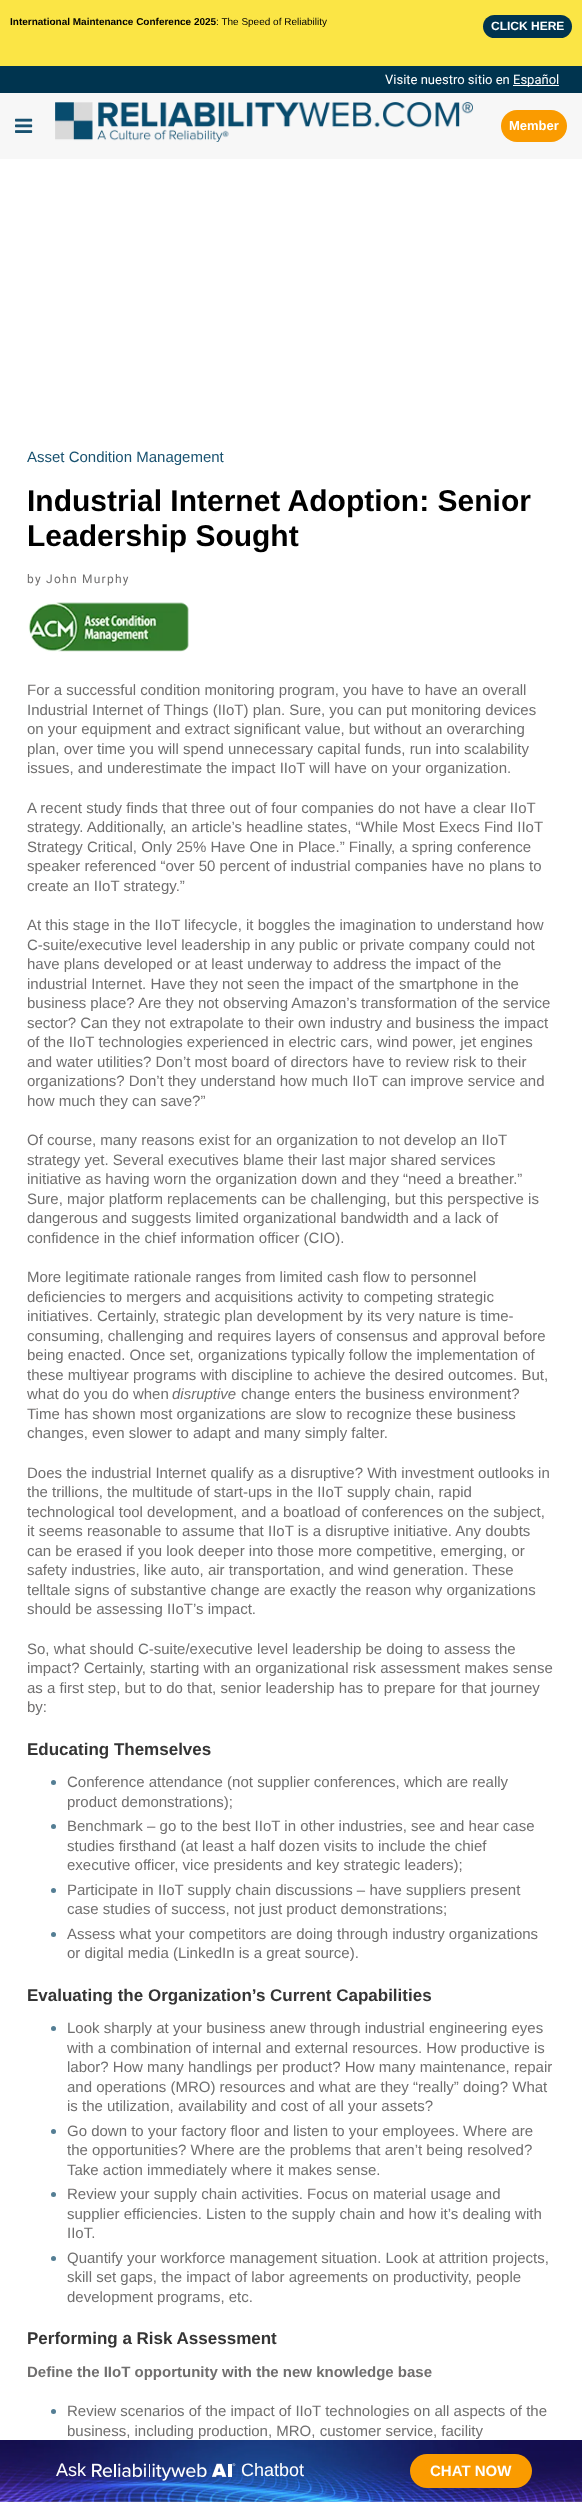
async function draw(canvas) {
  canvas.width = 582
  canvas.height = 2502
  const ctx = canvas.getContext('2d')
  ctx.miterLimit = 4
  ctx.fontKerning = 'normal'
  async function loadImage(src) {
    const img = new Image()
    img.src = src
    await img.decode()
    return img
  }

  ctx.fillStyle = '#fff'
  ctx.fillRect(0, 0, 582, 2502)
  ctx.fillStyle = '#fbe545'
  ctx.fillRect(0, 0, 582, 66)
  ctx.font = 'bold 10px Liberation Sans'
  ctx.fillStyle = '#000'
  ctx.fillText('International Maintenance Conference 2025', 10, 25)
  ctx.font = '10px Liberation Sans'
  ctx.fillText(': The Speed of Reliability', 216, 25)
  ctx.fillStyle = '#00344f'
  ctx.beginPath()
  ctx.roundRect(483, 15, 89, 23, 11.5)
  ctx.fill()
  ctx.font = 'bold 12px Liberation Sans'
  ctx.fillStyle = '#fff'
  ctx.fillText('CLICK HERE', 491, 30)
  ctx.fillStyle = '#00344f'
  ctx.fillRect(0, 66, 582, 27)
  ctx.font = '13px Roboto'
  ctx.fillStyle = '#fff'
  ctx.fillText('Visite nuestro sitio en', 385, 84)
  ctx.fillRect(513, 85, 46, 1)
  ctx.fillText('Español', 513, 84)
  ctx.fillStyle = '#f7f7f7'
  ctx.fillRect(0, 93, 582, 66)
  ctx.drawImage(await loadImage('image0.png'), 15, 118, 18, 15)
  ctx.drawImage(await loadImage('image1.png'), 55, 102, 418, 40)
  ctx.fillStyle = '#fa9b00'
  ctx.beginPath()
  ctx.roundRect(501, 110, 66, 32, 16)
  ctx.fill()
  ctx.font = 'bold 13px Liberation Sans'
  ctx.fillStyle = '#fff'
  ctx.fillText('Member', 509, 130)
  ctx.font = '15px Liberation Sans'
  ctx.fillStyle = '#195270'
  ctx.fillText('Asset Condition Management', 27, 462)
  ctx.font = 'bold 30px Liberation Sans'
  ctx.fillStyle = '#000'
  ctx.fillText('Industrial Internet Adoption: Senior', 27, 511)
  ctx.fillText('Leadership Sought', 27, 546)
  ctx.letterSpacing = '1.25px'
  ctx.font = '12px Roboto'
  ctx.fillStyle = '#706f6f'
  ctx.fillText('by John Murphy', 27, 583)
  ctx.drawImage(await loadImage('image2.png'), 28, 602, 161, 50)
  ctx.letterSpacing = '0px'
  ctx.font = '15px Liberation Sans'
  ctx.fillText('For a successful condition monitoring program, you have to have an overall', 27, 695)
  ctx.fillText('Industrial Internet of Things (IIoT) plan. Sure, you can put monitoring devices', 27, 715)
  ctx.fillText('on your equipment and extract significant value, but without an overarching', 27, 734)
  ctx.fillText('plan, over time you will spend unnecessary capital funds, run into scalability', 27, 754)
  ctx.fillText('issues, and underestimate the impact IIoT will have on your organization.', 27, 773)
  ctx.fillText('A recent study finds that three out of four companies do not have a clear IIoT', 27, 813)
  ctx.fillText('strategy. Additionally, an article’s headline states, “While Most Execs Find IIoT', 27, 832)
  ctx.fillText('Strategy Critical, Only 25% Have One in Place.” Finally, a spring conference', 27, 852)
  ctx.fillText('speaker referenced “over 50 percent of industrial companies have no plans to', 27, 871)
  ctx.fillText('create an IIoT strategy.”', 27, 891)
  ctx.fillText('At this stage in the IIoT lifecycle, it boggles the imagination to understand how', 27, 930)
  ctx.fillText('C-suite/executive level leadership in any public or private company could not', 27, 950)
  ctx.fillText('have plans developed or at least underway to address the impact of the', 27, 969)
  ctx.fillText('industrial Internet. Have they not seen the impact of the smartphone in the', 27, 989)
  ctx.fillText('business place? Are they not observing Amazon’s transformation of the service', 27, 1008)
  ctx.fillText('sector? Can they not extrapolate to their own industry and business the impact', 27, 1028)
  ctx.fillText('of the IIoT technologies experienced in electric cars, wind power, jet engines', 27, 1047)
  ctx.fillText('and water utilities? Don’t most board of directors have to review risk to their', 27, 1067)
  ctx.fillText('organizations? Don’t they understand how much IIoT can improve service and', 27, 1086)
  ctx.fillText('how much they can save?”', 27, 1106)
  ctx.fillText('Of course, many reasons exist for an organization to not develop an IIoT', 27, 1145)
  ctx.fillText('strategy yet. Several executives blame their last major shared services', 27, 1165)
  ctx.fillText('initiative as having worn the organization down and they “need a breather.”', 27, 1184)
  ctx.fillText('Sure, major platform replacements can be challenging, but this perspective is', 27, 1204)
  ctx.fillText('dangerous and suggests limited organizational bandwidth and a lack of', 27, 1223)
  ctx.fillText('confidence in the chief information officer (CIO).', 27, 1243)
  ctx.fillText('More legitimate rationale ranges from limited cash flow to personnel', 27, 1282)
  ctx.fillText('deficiencies to mergers and acquisitions activity to competing strategic', 27, 1302)
  ctx.fillText('initiatives. Certainly, strategic plan development by its very nature is time-', 27, 1321)
  ctx.fillText('consuming, challenging and requires layers of consensus and approval before', 27, 1341)
  ctx.fillText('being enacted. Once set, organizations typically follow the implementation of', 27, 1360)
  ctx.fillText('these multiyear programs with discipline to achieve the desired outcomes. But,', 27, 1380)
  ctx.fillText('what do you do when', 27, 1399)
  ctx.font = 'italic 15px Liberation Sans'
  ctx.fillText('disruptive', 172, 1399)
  ctx.font = '15px Liberation Sans'
  ctx.fillText('change enters the business environment?', 241, 1399)
  ctx.fillText('Time has shown most organizations are slow to recognize these business', 27, 1419)
  ctx.fillText('changes, even slower to adapt and many simply falter.', 27, 1438)
  ctx.fillText('Does the industrial Internet qualify as a disruptive? With investment outlooks in', 27, 1478)
  ctx.fillText('the trillions, the multitude of start-ups in the IIoT supply chain, rapid', 27, 1497)
  ctx.fillText('technological tool development, and a boatload of conferences on the subject,', 27, 1517)
  ctx.fillText('it seems reasonable to assume that IIoT is a disruptive initiative. Any doubts', 27, 1536)
  ctx.fillText('can be erased if you look deeper into those more competitive, emerging, or', 27, 1556)
  ctx.fillText('safety industries, like auto, air transportation, and wind generation. These', 27, 1575)
  ctx.fillText('telltale signs of substantive change are exactly the reason why organizations', 27, 1595)
  ctx.fillText('should be assessing IIoT’s impact.', 27, 1614)
  ctx.fillText('So, what should C-suite/executive level leadership be doing to assess the', 27, 1654)
  ctx.fillText('impact? Certainly, starting with an organizational risk assessment makes sense', 27, 1673)
  ctx.fillText('as a first step, but to do that, senior leadership has to prepare for that journey', 27, 1693)
  ctx.fillText('by:', 27, 1712)
  ctx.font = 'bold 17px Liberation Sans'
  ctx.fillStyle = '#353535'
  ctx.fillText('Educating Themselves', 27, 1755)
  ctx.fillStyle = '#547e94'
  ctx.beginPath()
  ctx.arc(53.5, 1782.5, 2.5, 0, 2 * Math.PI)
  ctx.fill()
  ctx.font = '15px Liberation Sans'
  ctx.fillStyle = '#706f6f'
  ctx.fillText('Conference attendance (not supplier conferences, which are really', 67, 1787)
  ctx.fillText('product demonstrations);', 67, 1807)
  ctx.fillStyle = '#547e94'
  ctx.beginPath()
  ctx.arc(53.5, 1826.5, 2.5, 0, 2 * Math.PI)
  ctx.fill()
  ctx.fillStyle = '#706f6f'
  ctx.fillText('Benchmark – go to the best IIoT in other industries, see and hear case', 67, 1831)
  ctx.fillText('studies firsthand (at least a half dozen visits to include the chief', 67, 1851)
  ctx.fillText('executive officer, vice presidents and key strategic leaders);', 67, 1870)
  ctx.fillStyle = '#547e94'
  ctx.beginPath()
  ctx.arc(53.5, 1890.5, 2.5, 0, 2 * Math.PI)
  ctx.fill()
  ctx.fillStyle = '#706f6f'
  ctx.fillText('Participate in IIoT supply chain discussions – have suppliers present', 67, 1895)
  ctx.fillText('case studies of success, not just product demonstrations;', 67, 1914)
  ctx.fillStyle = '#547e94'
  ctx.beginPath()
  ctx.arc(53.5, 1934.5, 2.5, 0, 2 * Math.PI)
  ctx.fill()
  ctx.fillStyle = '#706f6f'
  ctx.fillText('Assess what your competitors are doing through industry organizations', 67, 1939)
  ctx.fillText('or digital media (LinkedIn is a great source).', 67, 1958)
  ctx.font = 'bold 17px Liberation Sans'
  ctx.fillStyle = '#353535'
  ctx.fillText('Evaluating the Organization’s Current Capabilities', 27, 2001)
  ctx.fillStyle = '#547e94'
  ctx.beginPath()
  ctx.arc(53.5, 2028.5, 2.5, 0, 2 * Math.PI)
  ctx.fill()
  ctx.font = '15px Liberation Sans'
  ctx.fillStyle = '#706f6f'
  ctx.fillText('Look sharply at your business anew through industrial engineering eyes', 67, 2033)
  ctx.fillText('with a combination of internal and external resources. How productive is', 67, 2053)
  ctx.fillText('labor? How many handlings per product? How many maintenance, repair', 67, 2072)
  ctx.fillText('and operations (MRO) resources and what are they “really” doing? What', 67, 2092)
  ctx.fillText('is the utilization, availability and cost of all your assets?', 67, 2111)
  ctx.fillStyle = '#547e94'
  ctx.beginPath()
  ctx.arc(53.5, 2131.5, 2.5, 0, 2 * Math.PI)
  ctx.fill()
  ctx.fillStyle = '#706f6f'
  ctx.fillText('Go down to your factory floor and listen to your employees. Where are', 67, 2136)
  ctx.fillText('the opportunities? Where are the problems that aren’t being resolved?', 67, 2155)
  ctx.fillText('Take action immediately where it makes sense.', 67, 2175)
  ctx.fillStyle = '#547e94'
  ctx.beginPath()
  ctx.arc(53.5, 2194.5, 2.5, 0, 2 * Math.PI)
  ctx.fill()
  ctx.fillStyle = '#706f6f'
  ctx.fillText('Review your supply chain activities. Focus on material usage and', 67, 2199)
  ctx.fillText('supplier efficiencies. Listen to the supply chain and how it’s dealing with', 67, 2219)
  ctx.fillText('IIoT.', 67, 2238)
  ctx.fillStyle = '#547e94'
  ctx.beginPath()
  ctx.arc(53.5, 2258.5, 2.5, 0, 2 * Math.PI)
  ctx.fill()
  ctx.fillStyle = '#706f6f'
  ctx.fillText('Quantify your workforce management situation. Look at attrition projects,', 67, 2263)
  ctx.fillText('skill set gaps, the impact of labor agreements on productivity, people', 67, 2282)
  ctx.fillText('development programs, etc.', 67, 2302)
  ctx.font = 'bold 17px Liberation Sans'
  ctx.fillStyle = '#353535'
  ctx.fillText('Performing a Risk Assessment', 27, 2344)
  ctx.font = 'bold 15px Liberation Sans'
  ctx.fillStyle = '#706f6f'
  ctx.fillText('Define the IIoT opportunity with the new knowledge base', 27, 2377)
  ctx.fillStyle = '#547e94'
  ctx.beginPath()
  ctx.arc(53.5, 2411.5, 2.5, 0, 2 * Math.PI)
  ctx.fill()
  ctx.font = '15px Liberation Sans'
  ctx.fillStyle = '#706f6f'
  ctx.fillText('Review scenarios of the impact of IIoT technologies on all aspects of the', 67, 2416)
  ctx.fillText('business, including production, MRO, customer service, facility', 67, 2436)
  ctx.drawImage(await loadImage('image3.png'), 0, 2440, 582, 62)
  ctx.font = '18px Liberation Sans'
  ctx.fillStyle = '#fff'
  ctx.fillText('Ask', 56, 2476)
  ctx.drawImage(await loadImage('image4.png'), 92, 2463, 144, 18)
  ctx.fillText('Chatbot', 241, 2476)
  ctx.fillStyle = '#fa9b00'
  ctx.beginPath()
  ctx.roundRect(410, 2454, 122, 34, 17)
  ctx.fill()
  ctx.font = 'bold 15px Liberation Sans'
  ctx.fillStyle = '#fff'
  ctx.fillText('CHAT NOW', 430, 2476)
}

draw(document.querySelector('canvas'))
